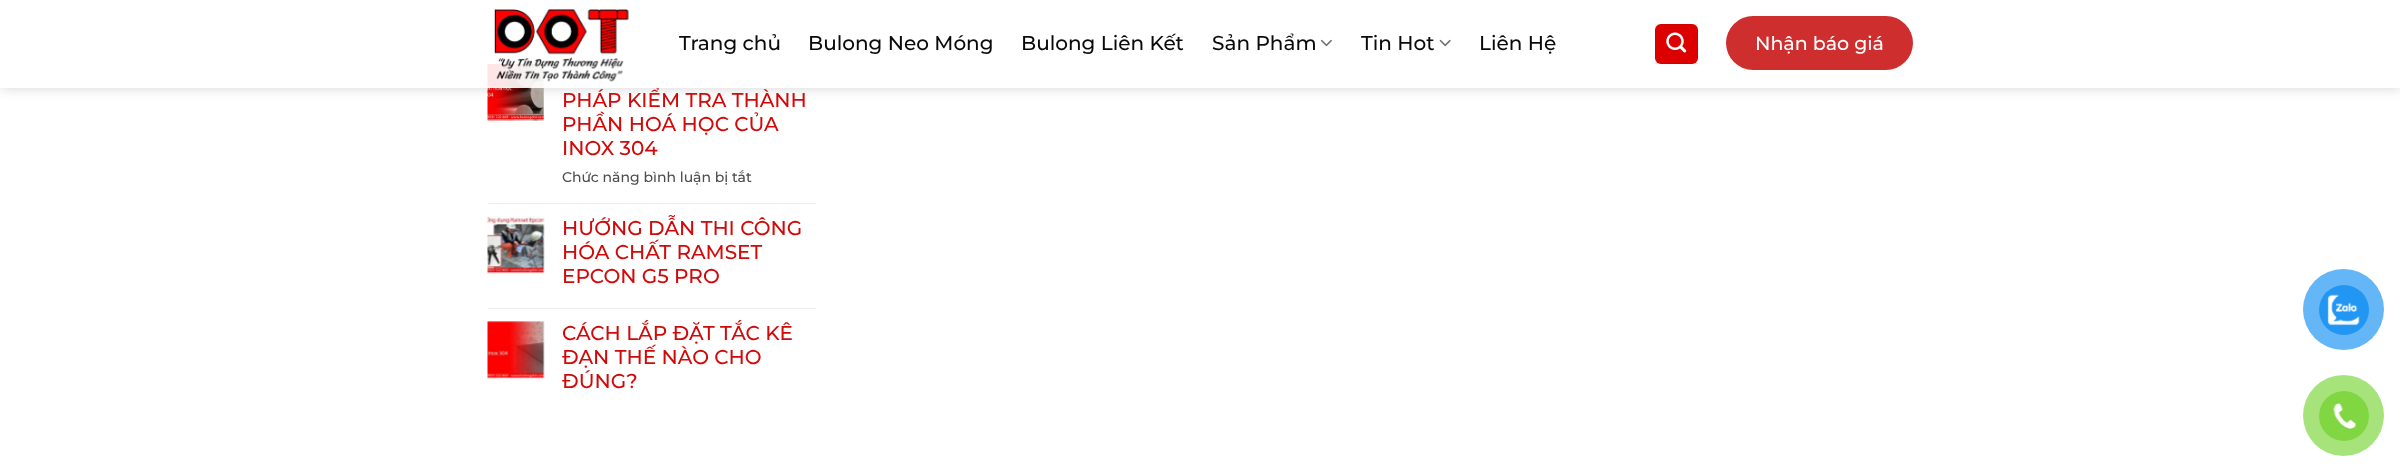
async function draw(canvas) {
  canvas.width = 2400
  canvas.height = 472
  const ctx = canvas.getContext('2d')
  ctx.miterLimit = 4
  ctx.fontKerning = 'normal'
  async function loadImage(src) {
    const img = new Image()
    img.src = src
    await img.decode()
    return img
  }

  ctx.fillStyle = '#fff'
  ctx.fillRect(0, 0, 2400, 472)
  ctx.fillStyle = '#e6e6e6'
  ctx.fillRect(488, 28, 37, 4)
  ctx.drawImage(await loadImage('image4.png'), 487, 64, 57, 57)
  ctx.save()
  ctx.beginPath()
  ctx.moveTo(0, 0)
  ctx.lineTo(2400, 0)
  ctx.lineTo(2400, 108)
  ctx.lineTo(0, 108)
  ctx.closePath()
  ctx.moveTo(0, 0)
  ctx.lineTo(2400, 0)
  ctx.lineTo(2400, 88)
  ctx.lineTo(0, 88)
  ctx.closePath()
  ctx.clip('evenodd')
  ctx.fillStyle = '#00000026'
  ctx.filter = 'blur(6px)'
  ctx.beginPath()
  ctx.rect(1, 1, 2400, 88)
  ctx.fill()
  ctx.filter = 'none'
  ctx.restore()
  ctx.font = '500 20px Montserrat'
  ctx.fillStyle = '#d10909'
  ctx.fillText('PHÁP KIỂM TRA THÀNH', 562, 107)
  ctx.fillStyle = '#ffffffe6'
  ctx.fillRect(0, 28, 2400, 60)
  ctx.drawImage(await loadImage('image0.png'), 494, 9, 135, 73)
  ctx.fillStyle = '#0a0a0a'
  ctx.fillText('Trang chủ', 679, 50)
  ctx.fillText('Bulong Neo Móng', 808, 50)
  ctx.fillText('Bulong Liên Kết', 1021, 50)
  ctx.fillText('Sản Phẩm', 1212, 50)
  ctx.drawImage(await loadImage('image1.png'), 1320, 39, 12, 8)
  ctx.fillText('Tin Hot', 1361, 50)
  ctx.drawImage(await loadImage('image2.png'), 1439, 39, 12, 8)
  ctx.fillText('Liên Hệ', 1479, 50)
  ctx.fillStyle = '#d00'
  ctx.beginPath()
  ctx.roundRect(1655, 24, 43, 40, 6)
  ctx.fill()
  ctx.strokeStyle = '#0000000d'
  ctx.strokeRect(1655.5, 24.5, 42, 39)
  ctx.drawImage(await loadImage('image3.png'), 1666, 32, 21, 21)
  ctx.fillStyle = '#cf2e2e'
  ctx.beginPath()
  ctx.roundRect(1726, 16, 187, 54, 27)
  ctx.fill()
  ctx.font = '500 19px Montserrat'
  ctx.fillStyle = '#fff'
  ctx.fillText('Nhận báo giá', 1755, 50)
  ctx.font = '500 20px Montserrat'
  ctx.fillStyle = '#d10909'
  ctx.fillText('PHẦN HOÁ HỌC CỦA', 562, 131)
  ctx.fillText('INOX 304', 562, 155)
  ctx.font = '500 14px Montserrat'
  ctx.fillStyle = '#4d4d4d'
  ctx.fillText('Chức năng bình luận bị tắt', 562, 182)
  ctx.fillStyle = '#ececec'
  ctx.fillRect(488, 203, 328, 1)
  ctx.drawImage(await loadImage('image5.png'), 487, 216, 58, 58)
  ctx.font = '500 20px Montserrat'
  ctx.fillStyle = '#d10909'
  ctx.fillText('HƯỚNG DẪN THI CÔNG', 562, 235)
  ctx.fillText('HÓA CHẤT RAMSET', 562, 259)
  ctx.fillText('EPCON G5 PRO', 562, 283)
  ctx.fillStyle = '#ececec'
  ctx.fillRect(488, 308, 328, 1)
  ctx.drawImage(await loadImage('image6.png'), 487, 321, 58, 58)
  ctx.fillStyle = '#d10909'
  ctx.fillText('CÁCH LẮP ĐẶT TẮC KÊ', 562, 340)
  ctx.fillText('ĐẠN THẾ NÀO CHO', 562, 364)
  ctx.fillText('ĐÚNG?', 562, 388)
  ctx.fillStyle = '#64b6f7'
  ctx.beginPath()
  ctx.arc(2343.5, 309.5, 40.5, 0, 2 * Math.PI)
  ctx.fill()
  ctx.fillStyle = '#2196f3'
  ctx.beginPath()
  ctx.arc(2344, 310, 25, 0, 2 * Math.PI)
  ctx.fill()
  ctx.drawImage(await loadImage('image7.png'), 2327, 294, 33, 32)
  ctx.fillStyle = '#a7e37b'
  ctx.beginPath()
  ctx.arc(2343.5, 415.5, 40.5, 0, 2 * Math.PI)
  ctx.fill()
  ctx.fillStyle = '#81d742'
  ctx.beginPath()
  ctx.arc(2344, 416, 25, 0, 2 * Math.PI)
  ctx.fill()
  ctx.drawImage(await loadImage('image8.png'), 2333, 403, 23, 26)
}

draw(document.querySelector('canvas'))
